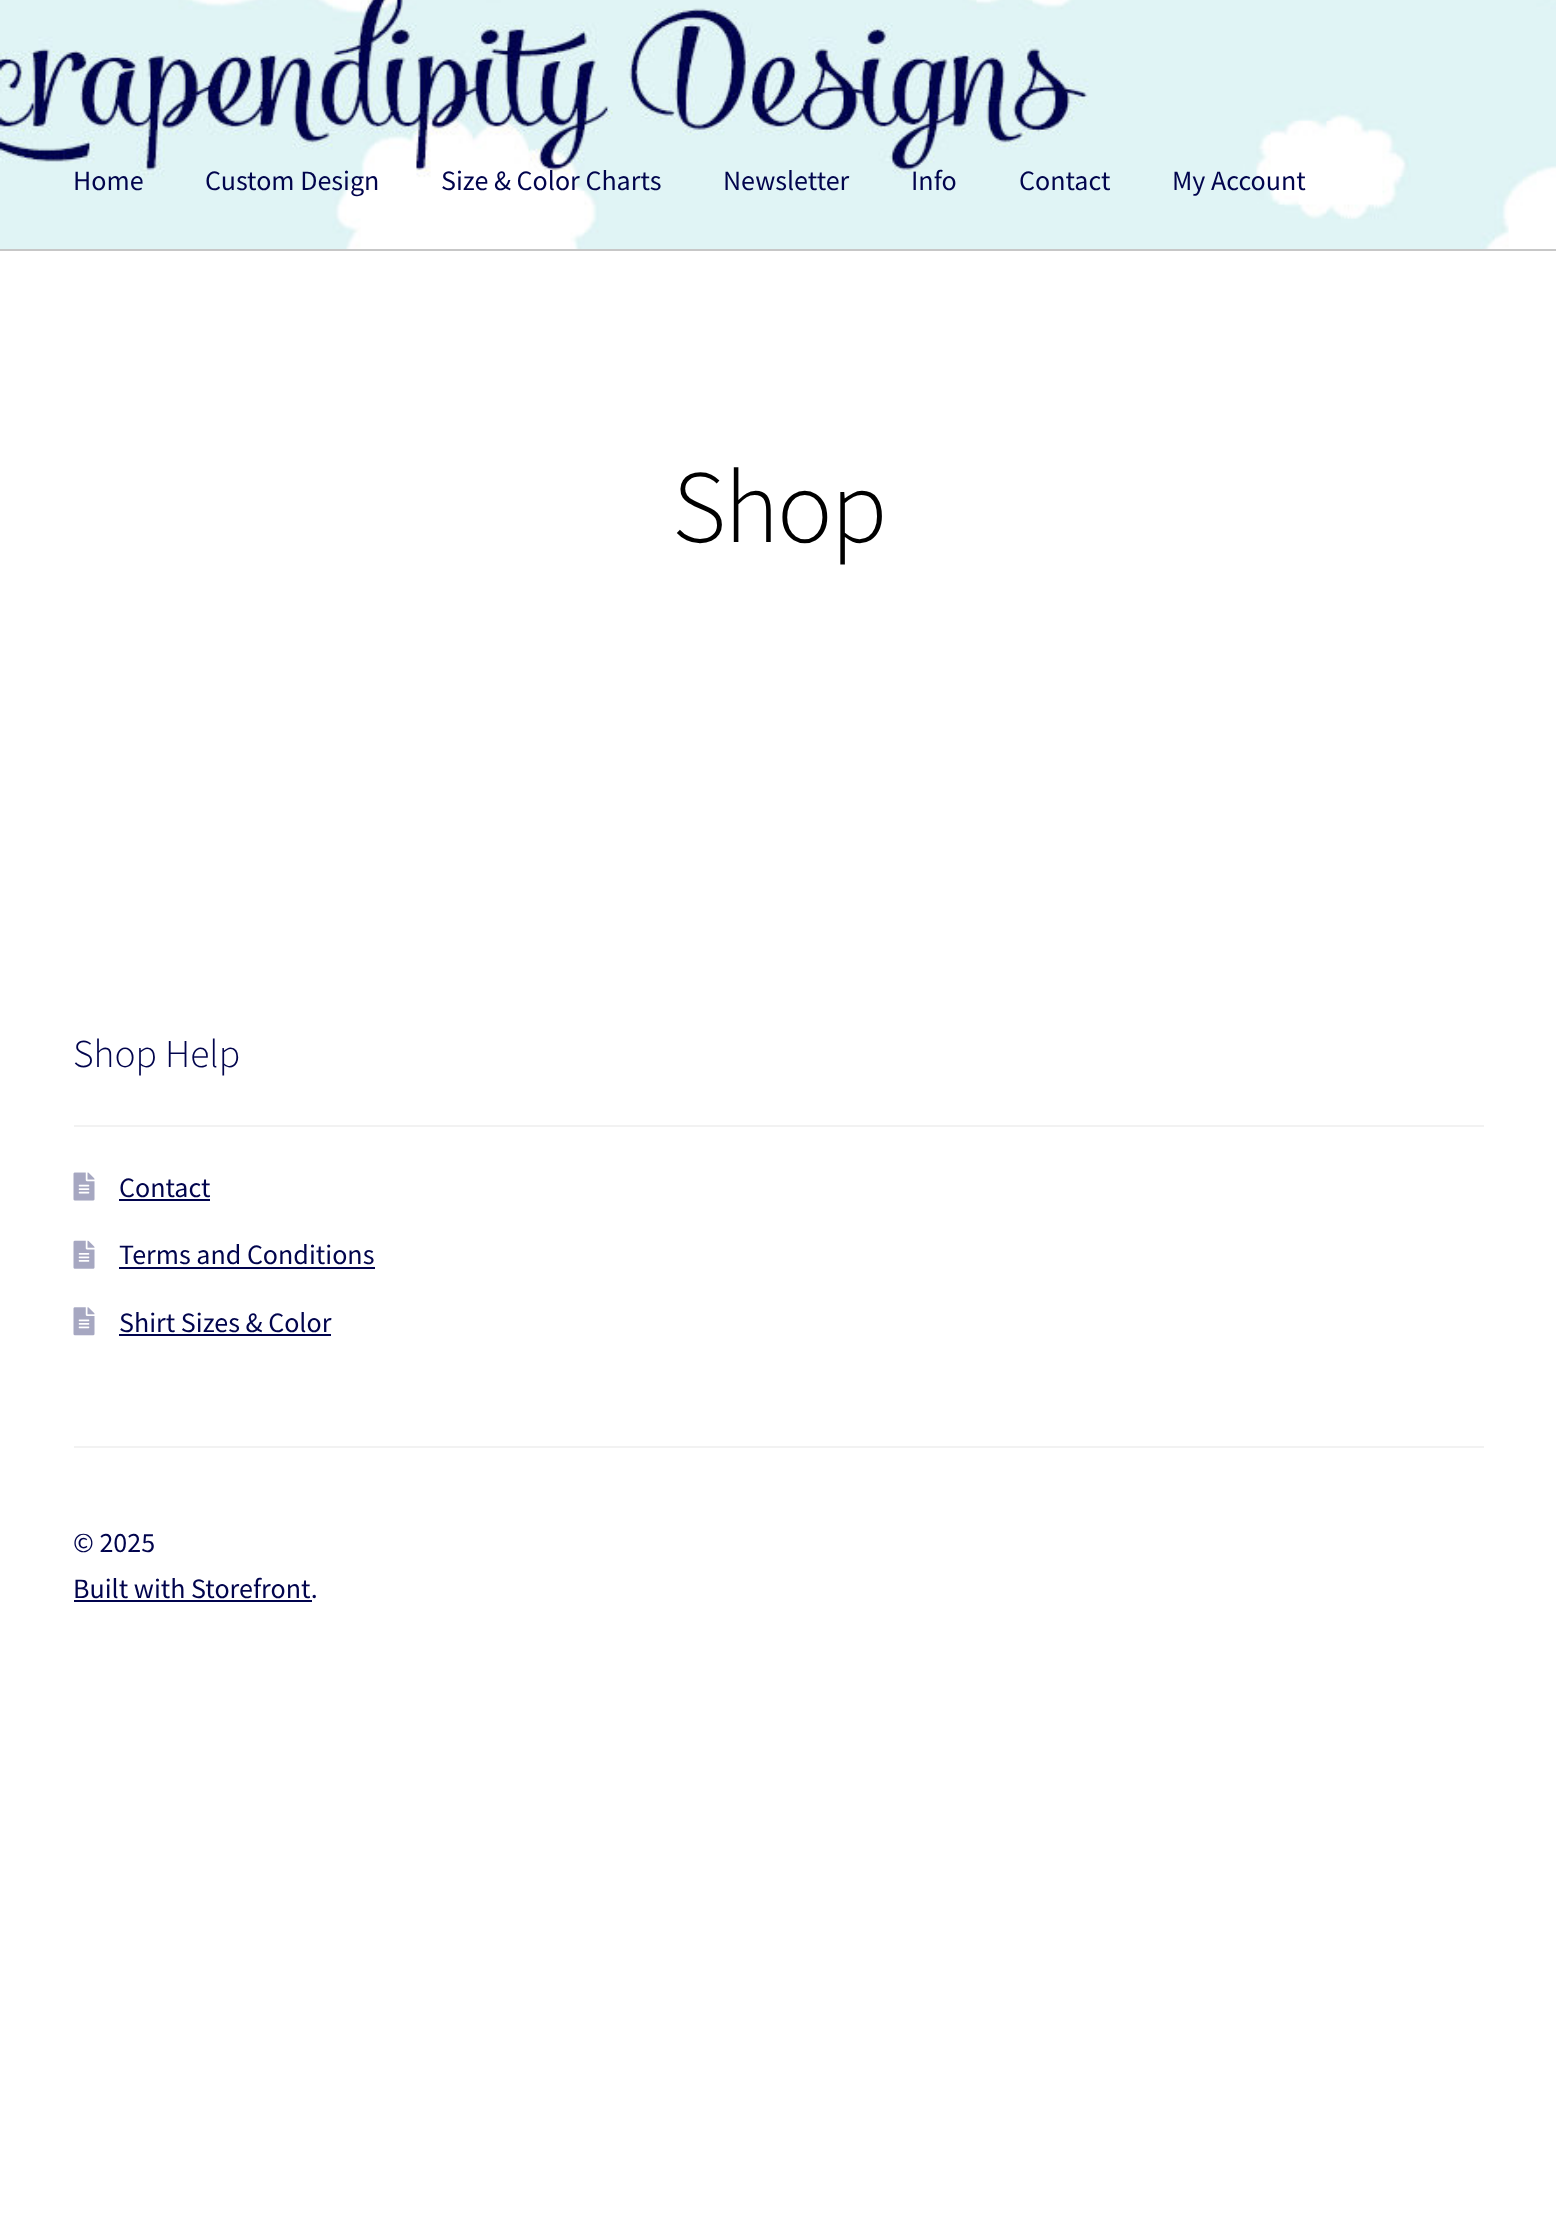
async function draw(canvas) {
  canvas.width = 1556
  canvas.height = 2240
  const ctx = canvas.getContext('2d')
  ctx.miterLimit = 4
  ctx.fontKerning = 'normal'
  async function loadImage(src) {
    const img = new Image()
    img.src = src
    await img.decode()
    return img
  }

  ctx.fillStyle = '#fff'
  ctx.fillRect(0, 0, 1556, 2240)
  ctx.drawImage(await loadImage('image0.png'), 0, 0, 1556, 249)
  ctx.fillStyle = '#c7c7c7'
  ctx.fillRect(0, 249, 1556, 2)
  ctx.font = '28px Source Sans Pro'
  ctx.fillStyle = '#01044d'
  ctx.fillText('Home', 73, 190)
  ctx.fillText('Custom Design', 205, 190)
  ctx.fillText('Size & Color Charts', 441, 190)
  ctx.fillText('Newsletter', 723, 190)
  ctx.fillText('Info', 911, 190)
  ctx.fillText('Contact', 1019, 190)
  ctx.fillText('My Account', 1172, 190)
  ctx.letterSpacing = '-2px'
  ctx.font = '300 104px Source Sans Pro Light'
  ctx.fillStyle = '#000'
  ctx.fillText('Shop', 672, 542)
  ctx.fillStyle = '#f2f2f2'
  ctx.fillRect(74, 1446, 1410, 2)
  ctx.fillRect(74, 1125, 1410, 2)
  ctx.letterSpacing = '0px'
  ctx.font = '300 39.5px Source Sans Pro Light'
  ctx.fillStyle = '#01044d'
  ctx.fillText('Shop Help', 73, 1067)
  ctx.drawImage(await loadImage('image1.png'), 73, 1172, 22, 29)
  ctx.font = '28px Source Sans Pro'
  ctx.fillText('Contact', 119, 1197)
  ctx.fillRect(119, 1199, 91, 2)
  ctx.drawImage(await loadImage('image2.png'), 73, 1240, 22, 29)
  ctx.fillText('Terms and Conditions', 119, 1264)
  ctx.fillRect(119, 1267, 256, 2)
  ctx.drawImage(await loadImage('image3.png'), 73, 1307, 22, 29)
  ctx.fillText('Shirt Sizes & Color', 119, 1332)
  ctx.fillRect(119, 1334, 212, 2)
  ctx.fillText('© 2025', 73, 1552)
  ctx.fillText('Built with Storefront.', 73, 1598)
  ctx.fillRect(74, 1600, 238, 2)
}

draw(document.querySelector('canvas'))
